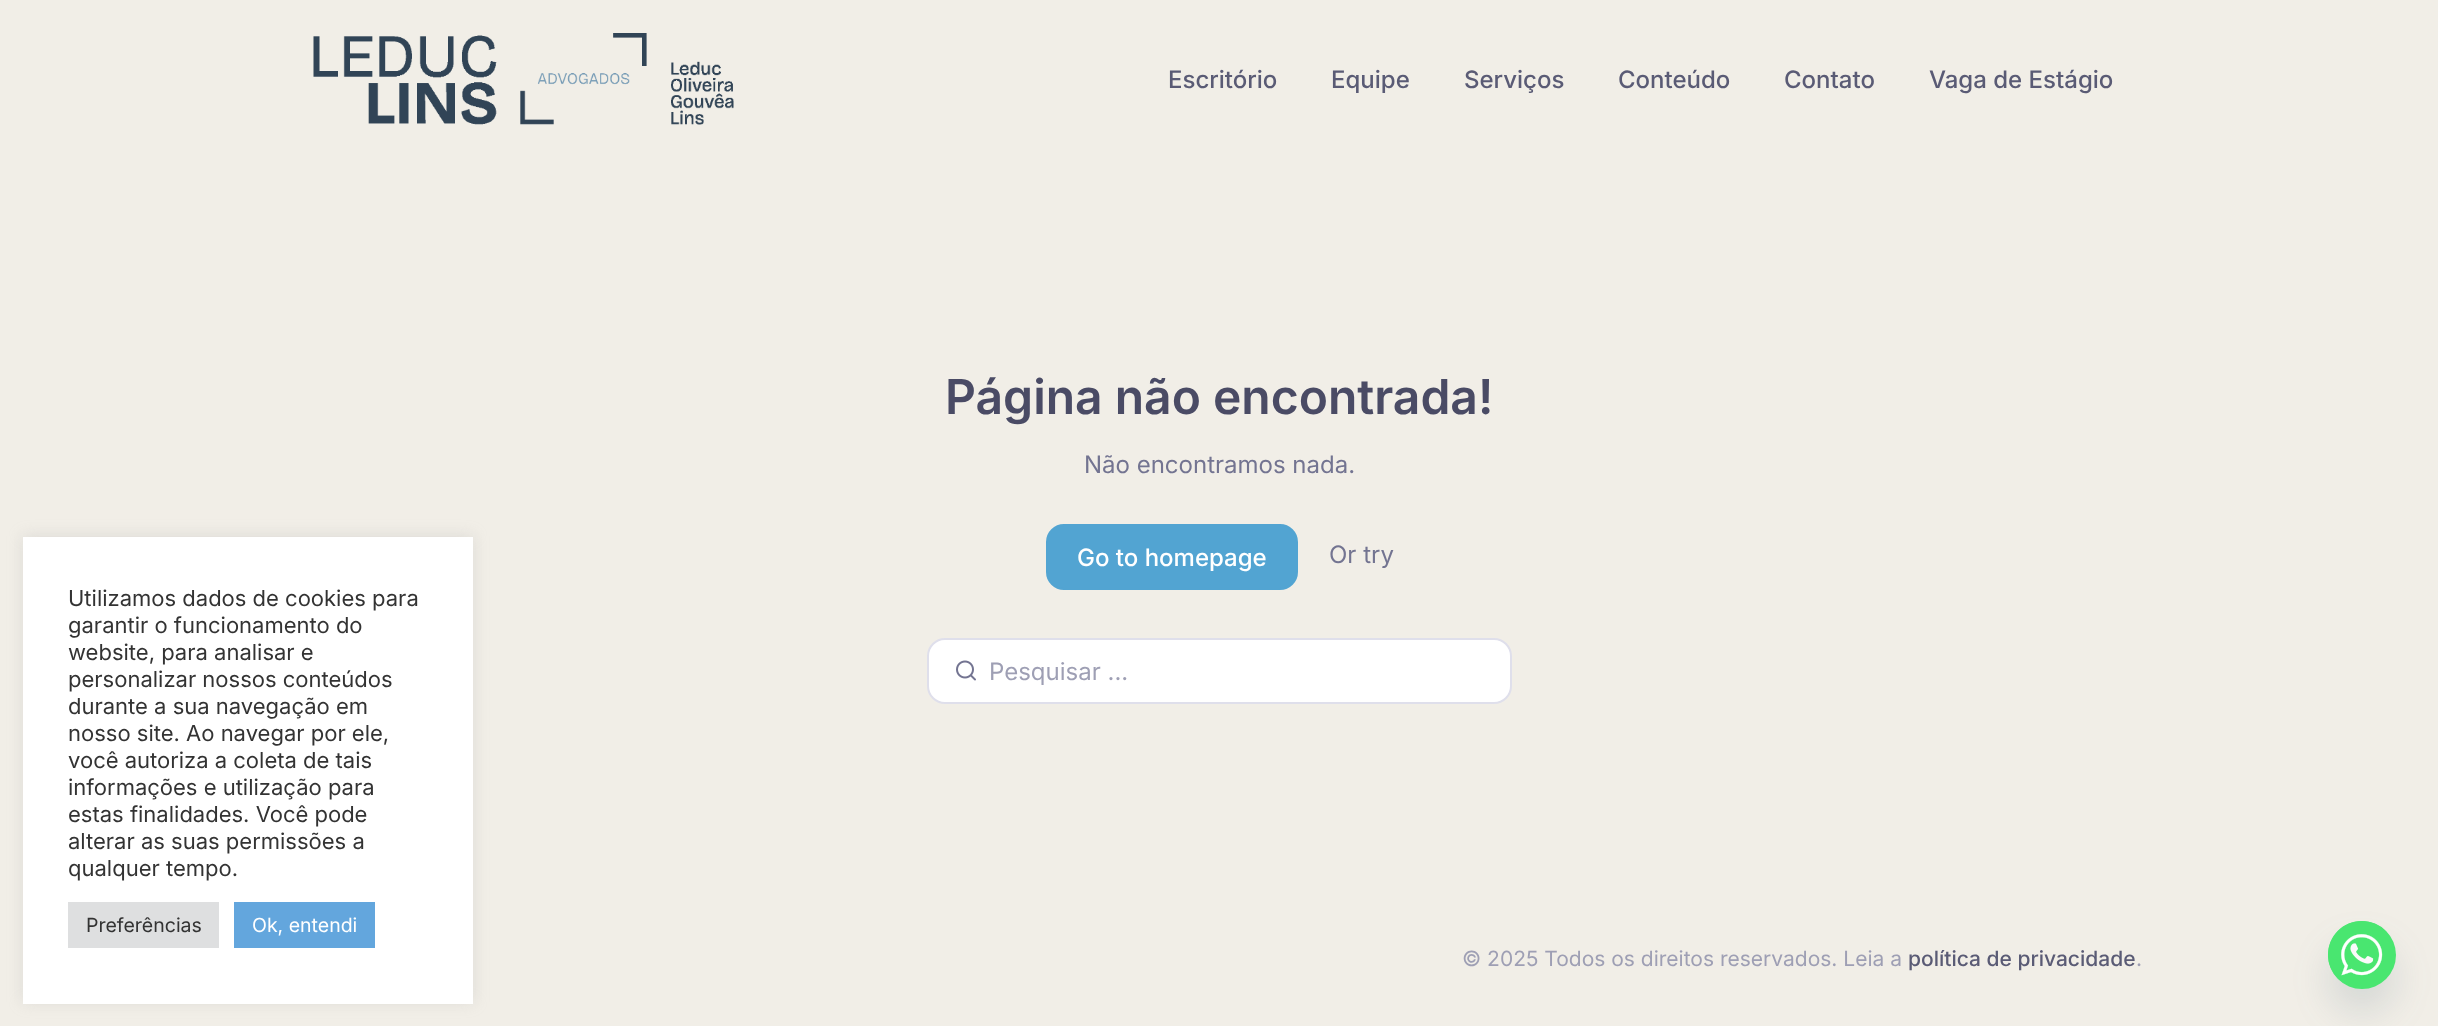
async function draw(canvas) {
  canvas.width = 2438
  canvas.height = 1026
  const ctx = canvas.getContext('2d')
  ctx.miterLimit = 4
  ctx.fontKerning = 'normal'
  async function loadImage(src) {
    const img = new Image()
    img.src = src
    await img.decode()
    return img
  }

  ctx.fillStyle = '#f1eee7'
  ctx.fillRect(0, 0, 2438, 1026)
  ctx.drawImage(await loadImage('image0.png'), 313, 33, 421, 92)
  ctx.font = '500 24px Inter'
  ctx.fillStyle = '#5a5b75'
  ctx.fillText('Escritório', 1168, 88)
  ctx.fillText('Equipe', 1331, 88)
  ctx.fillText('Serviços', 1464, 88)
  ctx.fillText('Conteúdo', 1618, 88)
  ctx.fillText('Contato', 1784, 88)
  ctx.fillText('Vaga de Estágio', 1929, 88)
  ctx.font = '600 48px Inter'
  ctx.fillStyle = '#4a4b65'
  ctx.fillText('Página não encontrada!', 945, 414)
  ctx.font = '24px Inter'
  ctx.fillStyle = '#737491'
  ctx.fillText('Não encontramos nada.', 1084, 473)
  ctx.fillStyle = '#52a4d2'
  ctx.beginPath()
  ctx.roundRect(1047, 525, 250, 64, 17)
  ctx.fill()
  ctx.strokeStyle = '#52a4d2'
  ctx.lineWidth = 2
  ctx.stroke()
  ctx.font = '500 24px Inter'
  ctx.fillStyle = '#fff'
  ctx.fillText('Go to homepage', 1077, 566)
  ctx.font = '24px Inter'
  ctx.fillStyle = '#737491'
  ctx.fillText('Or try', 1329, 563)
  ctx.fillStyle = '#fff'
  ctx.beginPath()
  ctx.roundRect(928, 639, 583, 64, 17)
  ctx.fill()
  ctx.strokeStyle = '#dfdfeb'
  ctx.stroke()
  ctx.drawImage(await loadImage('image1.png'), 956, 660, 20, 21)
  ctx.fillStyle = '#9e9fb4'
  ctx.fillText('Pesquisar ...', 989, 680)
  ctx.fillStyle = '#acabab4d'
  ctx.filter = 'blur(7.5px)'
  ctx.beginPath()
  ctx.rect(23, 536, 450, 466)
  ctx.fill()
  ctx.filter = 'none'
  ctx.fillStyle = '#fff'
  ctx.fillRect(23, 537, 450, 467)
  ctx.font = '22px Inter'
  ctx.fillStyle = '#333'
  ctx.fillText('Utilizamos dados de cookies para', 68, 606)
  ctx.fillText('garantir o funcionamento do', 68, 633)
  ctx.fillText('website, para analisar e', 68, 660)
  ctx.fillText('personalizar nossos conteúdos', 68, 687)
  ctx.fillText('durante a sua navegação em', 68, 714)
  ctx.fillText('nosso site. Ao navegar por ele,', 68, 741)
  ctx.fillText('você autoriza a coleta de tais', 68, 768)
  ctx.fillText('informações e utilização para', 68, 795)
  ctx.fillText('estas finalidades. Você pode', 68, 822)
  ctx.fillText('alterar as suas permissões a', 68, 849)
  ctx.fillText('qualquer tempo.', 68, 876)
  ctx.fillStyle = '#dedfe0'
  ctx.fillRect(68, 902, 151, 46)
  ctx.font = '19.5px Inter'
  ctx.fillStyle = '#333'
  ctx.fillText('Preferências', 86, 932)
  ctx.fillStyle = '#63a6dd'
  ctx.fillRect(234, 902, 141, 46)
  ctx.fillStyle = '#fff'
  ctx.fillText('Ok, entendi', 252, 932)
  ctx.font = '21px Inter'
  ctx.fillStyle = '#9e9fb4'
  ctx.fillText('© 2025 Todos os direitos reservados. Leia a', 1462, 966)
  ctx.font = '500 21px Inter'
  ctx.fillStyle = '#5a5b75'
  ctx.fillText('política de privacidade', 1908, 966)
  ctx.font = '21px Inter'
  ctx.fillStyle = '#9e9fb4'
  ctx.fillText('.', 2136, 966)
  ctx.fillStyle = '#49687e29'
  ctx.filter = 'blur(18px)'
  ctx.beginPath()
  ctx.roundRect(2328, 945, 68, 68, 34)
  ctx.fill()
  ctx.filter = 'none'
  ctx.fillStyle = '#49e670'
  ctx.beginPath()
  ctx.arc(2362, 955, 34, 0, 2 * Math.PI)
  ctx.fill()
  ctx.drawImage(await loadImage('image2.png'), 2328, 921, 62, 62)
}

draw(document.querySelector('canvas'))
